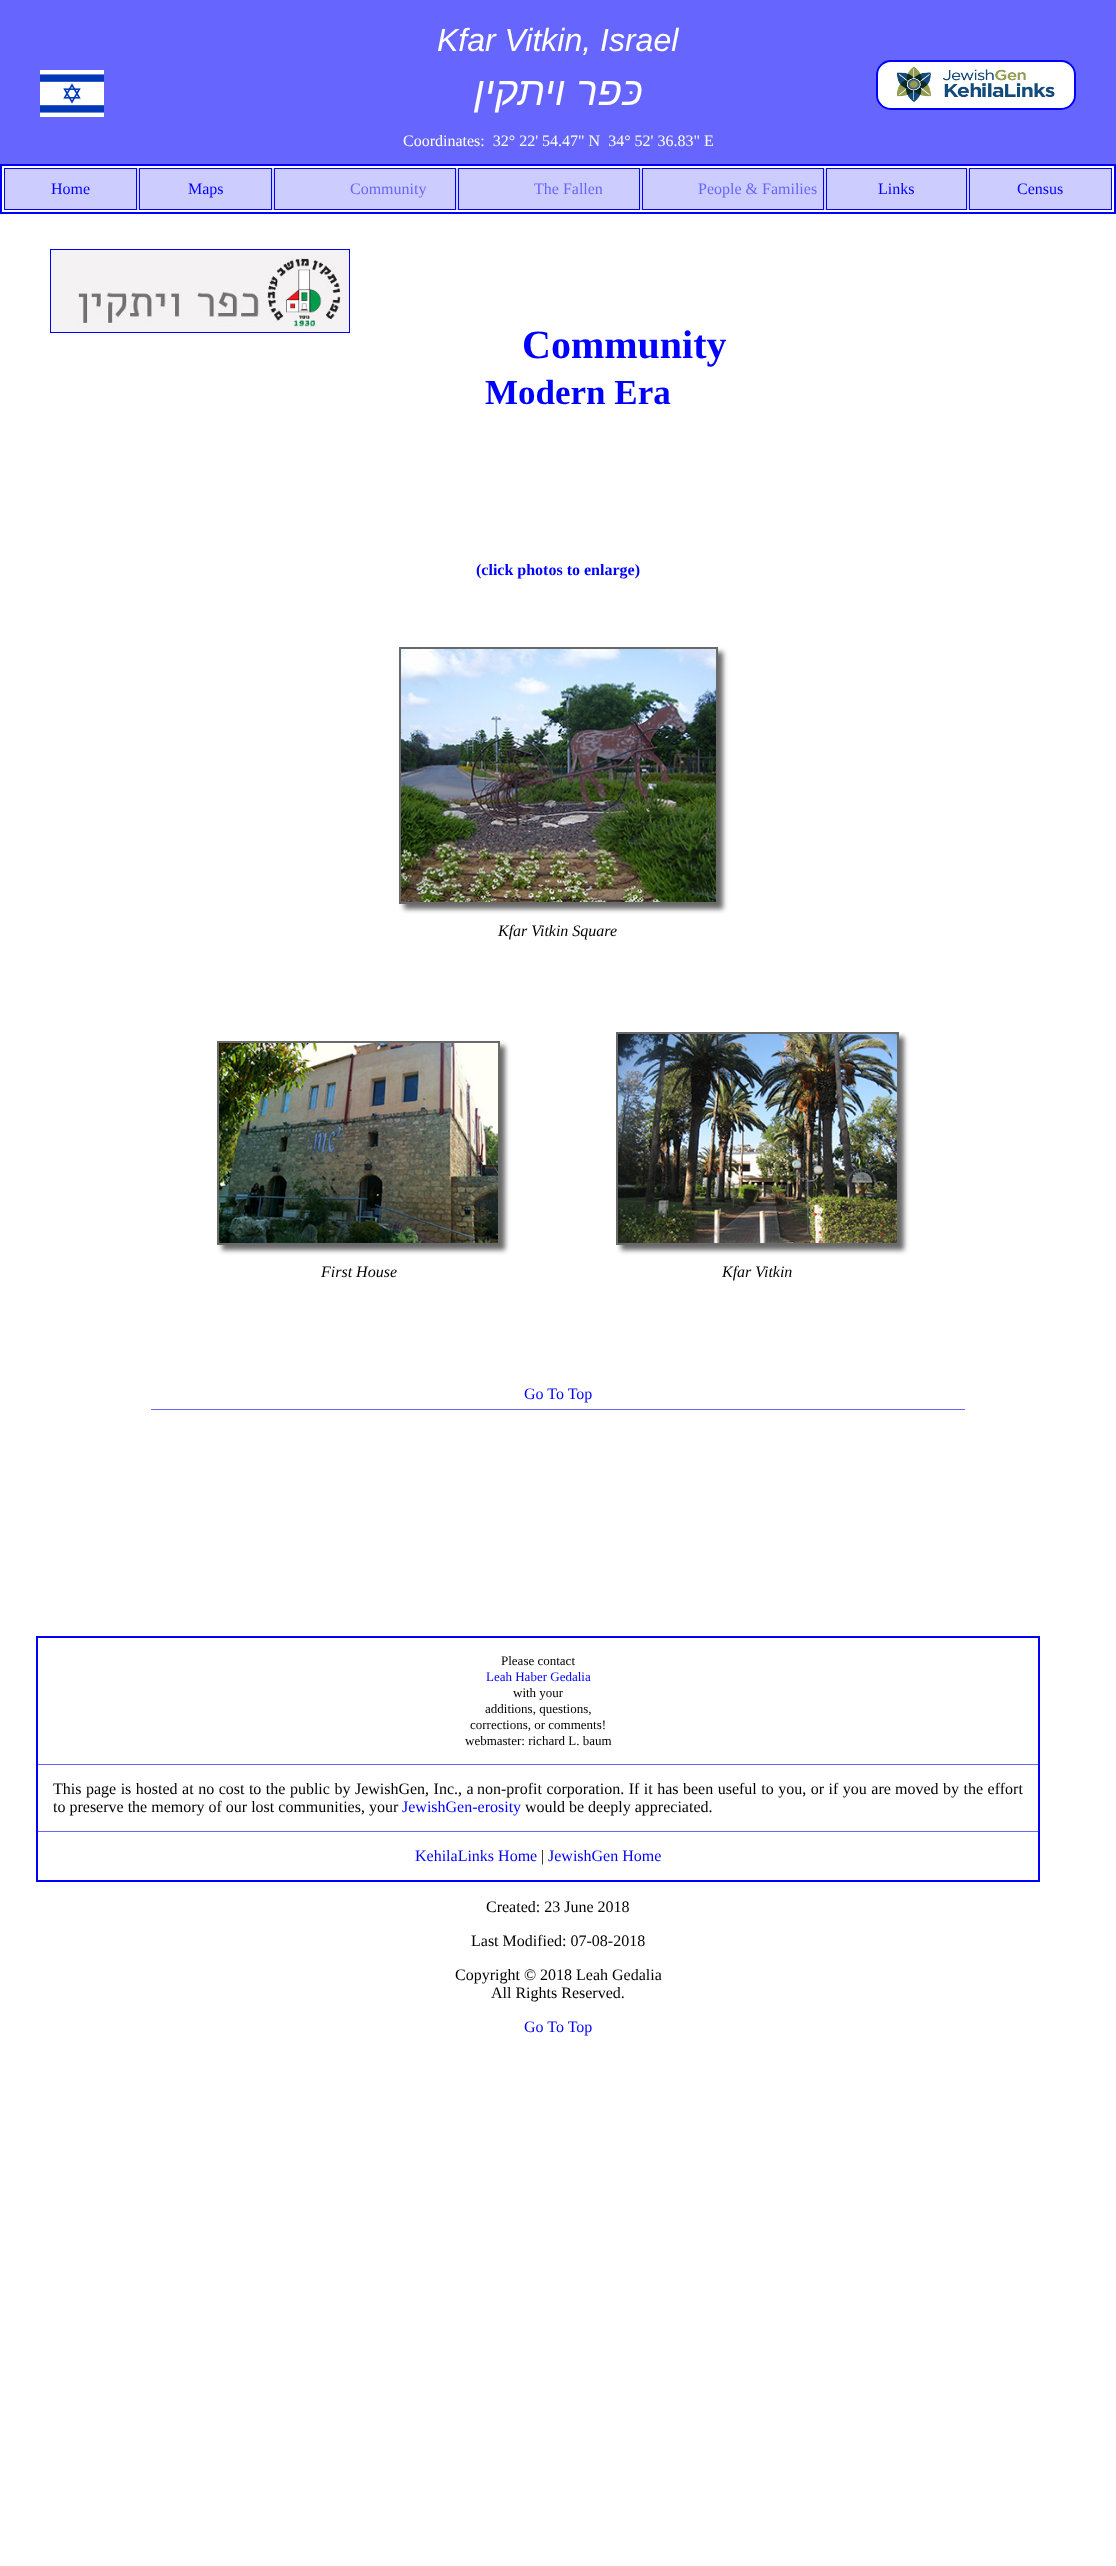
async function draw(canvas) {
  canvas.width = 1116
  canvas.height = 2566
  const ctx = canvas.getContext('2d')
  ctx.miterLimit = 4
  ctx.fontKerning = 'normal'
  async function loadImage(src) {
    const img = new Image()
    img.src = src
    await img.decode()
    return img
  }

  ctx.fillStyle = '#fff'
  ctx.fillRect(0, 0, 1116, 2566)
  ctx.fillStyle = '#66f'
  ctx.fillRect(0, 0, 1116, 164)
  ctx.drawImage(await loadImage('image0.png'), 40, 70, 64, 47)
  ctx.font = 'italic 32px Liberation Sans'
  ctx.fillStyle = '#fff'
  ctx.fillText('Kfar Vitkin, Israel', 437, 51)
  ctx.direction = 'rtl'
  ctx.font = 'italic 40px Liberation Sans'
  ctx.fillText('כּפר ויתקין', 643, 105)
  ctx.direction = 'ltr'
  ctx.font = '16px Liberation Serif'
  ctx.fillText('Coordinates:  32° 22\' 54.47" N  34° 52\' 36.83" E', 403, 146)
  ctx.beginPath()
  ctx.roundRect(877, 61, 198, 48, 14)
  ctx.strokeStyle = '#00f'
  ctx.lineWidth = 2
  ctx.stroke()
  ctx.drawImage(await loadImage('image1.png'), 878, 62, 196, 46)
  ctx.strokeRect(1, 165, 1114, 48)
  ctx.fillStyle = '#ccf'
  ctx.fillRect(5, 168, 1106, 42)
  ctx.lineWidth = 1
  ctx.strokeRect(4.5, 168.5, 132, 41)
  ctx.fillStyle = '#00f'
  ctx.fillText('Home', 51, 194)
  ctx.strokeRect(139.5, 168.5, 132, 41)
  ctx.fillText('Maps', 188, 194)
  ctx.strokeRect(274.5, 168.5, 181, 41)
  ctx.fillStyle = '#66f'
  ctx.fillText('Community', 350, 194)
  ctx.strokeRect(458.5, 168.5, 181, 41)
  ctx.fillText('The Fallen', 534, 194)
  ctx.strokeRect(642.5, 168.5, 181, 41)
  ctx.fillText('People & Families', 698, 194)
  ctx.strokeRect(826.5, 168.5, 140, 41)
  ctx.fillStyle = '#00f'
  ctx.fillText('Links', 878, 194)
  ctx.strokeRect(969.5, 168.5, 142, 41)
  ctx.fillText('Census', 1017, 194)
  ctx.strokeRect(50.5, 249.5, 299, 83)
  ctx.drawImage(await loadImage('image2.png'), 51, 250, 298, 82)
  ctx.font = 'bold 40px Liberation Serif'
  ctx.fillText('Community', 522, 358)
  ctx.font = 'bold 35px Liberation Serif'
  ctx.fillText('Modern Era', 485, 404)
  ctx.font = 'bold 16px Liberation Serif'
  ctx.fillText('(click photos to enlarge)', 476, 575)
  ctx.fillStyle = '#696969'
  ctx.filter = 'blur(2.5px)'
  ctx.beginPath()
  ctx.rect(404, 652, 319, 257)
  ctx.fill()
  ctx.filter = 'none'
  ctx.strokeStyle = '#696969'
  ctx.lineWidth = 2
  ctx.strokeRect(400, 648, 317, 255)
  ctx.drawImage(await loadImage('image3.png'), 401, 649, 315, 253)
  ctx.font = 'italic 16px Liberation Serif'
  ctx.fillStyle = '#000'
  ctx.fillText('Kfar Vitkin Square', 498, 936)
  ctx.fillStyle = '#696969'
  ctx.filter = 'blur(2.5px)'
  ctx.beginPath()
  ctx.rect(222, 1046, 283, 204)
  ctx.fill()
  ctx.filter = 'none'
  ctx.strokeRect(218, 1042, 281, 202)
  ctx.drawImage(await loadImage('image4.png'), 219, 1043, 279, 200)
  ctx.fillStyle = '#000'
  ctx.fillText('First House', 321, 1277)
  ctx.fillStyle = '#696969'
  ctx.filter = 'blur(2.5px)'
  ctx.beginPath()
  ctx.rect(621, 1037, 283, 213)
  ctx.fill()
  ctx.filter = 'none'
  ctx.strokeRect(617, 1033, 281, 211)
  ctx.drawImage(await loadImage('image5.png'), 618, 1034, 279, 209)
  ctx.fillStyle = '#000'
  ctx.fillText('Kfar Vitkin', 722, 1277)
  ctx.fillStyle = '#66f'
  ctx.fillRect(151, 1409, 814, 1)
  ctx.font = '16px Liberation Serif'
  ctx.fillStyle = '#00f'
  ctx.fillText('Go To Top', 524, 1399)
  ctx.strokeStyle = '#00f'
  ctx.strokeRect(37, 1637, 1002, 244)
  ctx.font = '13px Liberation Serif'
  ctx.fillStyle = '#000'
  ctx.fillText('Please contact', 501, 1665)
  ctx.fillStyle = '#00f'
  ctx.fillText('Leah Haber Gedalia', 486, 1681)
  ctx.fillStyle = '#000'
  ctx.fillText('with your', 513, 1697)
  ctx.fillText('additions, questions,', 485, 1713)
  ctx.fillText('corrections, or comments!', 470, 1729)
  ctx.fillText('webmaster: richard L. baum', 465, 1745)
  ctx.fillStyle = '#66f'
  ctx.fillRect(38, 1764, 1000, 1)
  ctx.wordSpacing = '0.5px'
  ctx.font = '16px Liberation Serif'
  ctx.fillStyle = '#000'
  ctx.fillText('This page is hosted at no cost to the public by JewishGen, Inc., a', 53, 1794)
  ctx.fillText('non-profit corporation. If it has been useful to you, or if you are', 477, 1794)
  ctx.fillText('moved by the effort', 895, 1794)
  ctx.wordSpacing = '0px'
  ctx.fillText('to preserve the memory of our lost communities, your', 53, 1812)
  ctx.fillStyle = '#00f'
  ctx.fillText('JewishGen-erosity', 402, 1812)
  ctx.fillStyle = '#000'
  ctx.fillText('would be deeply appreciated.', 525, 1812)
  ctx.fillStyle = '#66f'
  ctx.fillRect(38, 1831, 1000, 1)
  ctx.fillStyle = '#00f'
  ctx.fillText('KehilaLinks Home', 415, 1861)
  ctx.fillStyle = '#000'
  ctx.fillText('|', 541, 1861)
  ctx.fillStyle = '#00f'
  ctx.fillText('JewishGen Home', 548, 1861)
  ctx.fillStyle = '#000'
  ctx.fillText('Created: 23 June 2018', 486, 1912)
  ctx.fillText('Last Modified: 07-08-2018', 471, 1946)
  ctx.fillText('Copyright © 2018 Leah Gedalia', 455, 1980)
  ctx.fillText('All Rights Reserved.', 491, 1998)
  ctx.fillStyle = '#00f'
  ctx.fillText('Go To Top', 524, 2032)
}

draw(document.querySelector('canvas'))
